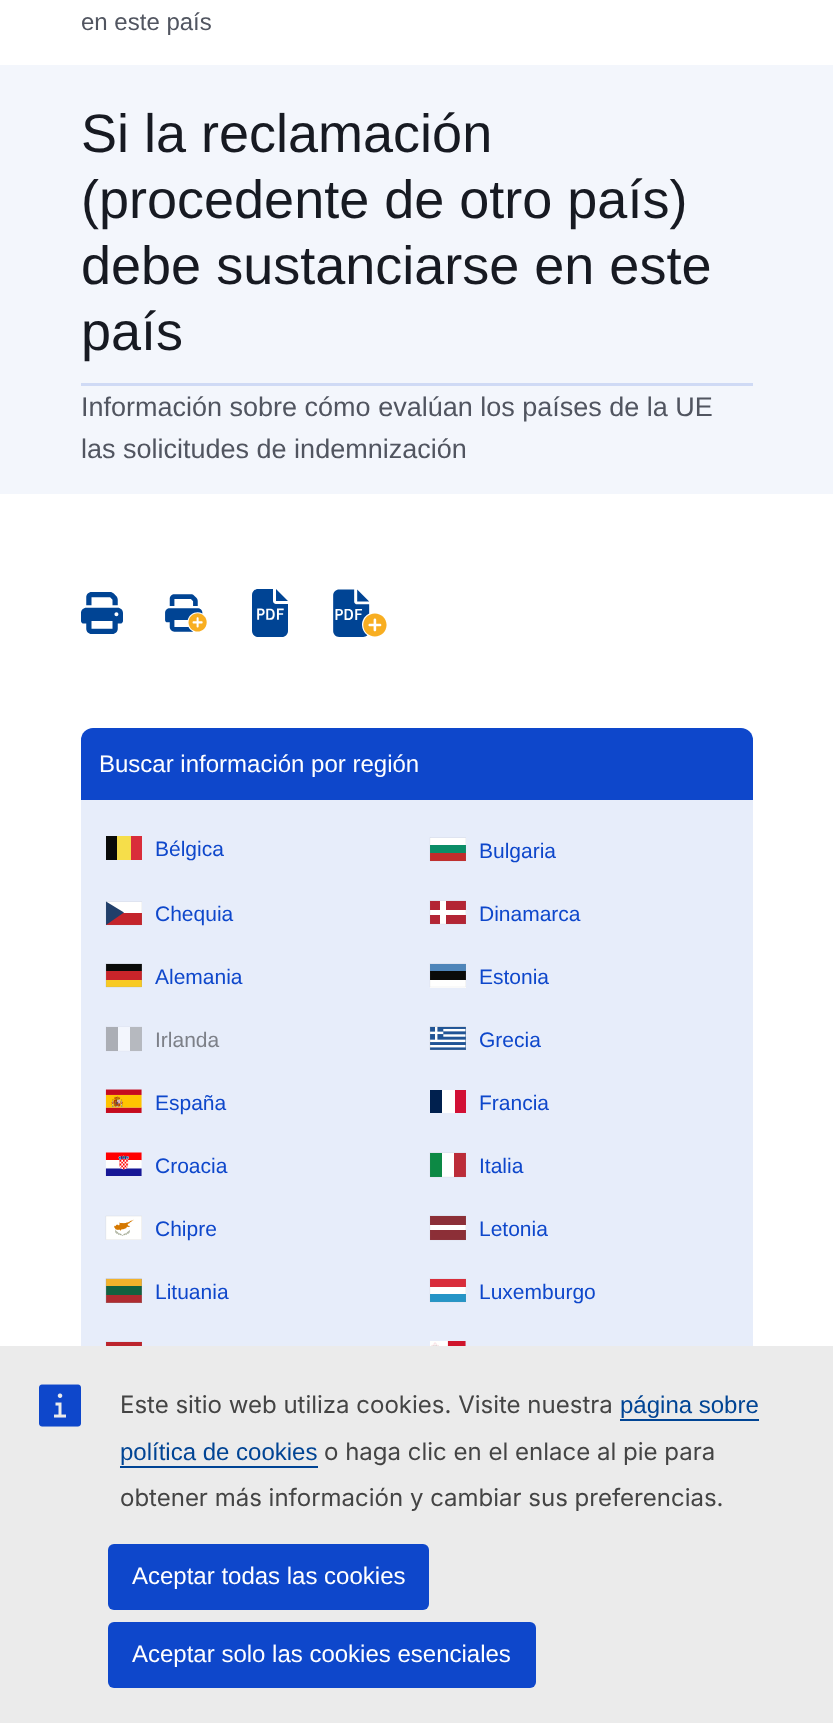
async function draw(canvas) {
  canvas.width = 833
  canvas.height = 1723
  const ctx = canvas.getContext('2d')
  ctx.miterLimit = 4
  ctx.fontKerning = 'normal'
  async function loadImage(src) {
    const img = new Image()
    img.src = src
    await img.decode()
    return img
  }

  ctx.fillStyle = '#fff'
  ctx.fillRect(0, 0, 833, 1723)
  ctx.font = '24px Liberation Sans'
  ctx.fillStyle = '#515560'
  ctx.fillText('en este país', 81, 30)
  ctx.fillStyle = '#f3f6fc'
  ctx.fillRect(0, 65, 833, 429)
  ctx.fillStyle = '#cfdaf5'
  ctx.fillRect(81, 383, 672, 3)
  ctx.font = '54px Liberation Sans'
  ctx.fillStyle = '#171a22'
  ctx.fillText('Si la reclamación', 81, 152)
  ctx.fillText('(procedente de otro país)', 81, 218)
  ctx.fillText('debe sustanciarse en este', 81, 284)
  ctx.fillText('país', 81, 350)
  ctx.font = '27px Liberation Sans'
  ctx.fillStyle = '#515560'
  ctx.fillText('Información sobre cómo evalúan los países de la UE', 81, 416)
  ctx.fillText('las solicitudes de indemnización', 81, 458)
  ctx.drawImage(await loadImage('image0.png'), 81, 592, 42, 42)
  ctx.drawImage(await loadImage('image1.png'), 165, 594, 42, 38)
  ctx.drawImage(await loadImage('image2.png'), 252, 589, 36, 48)
  ctx.drawImage(await loadImage('image3.png'), 333, 589, 54, 48)
  ctx.fillStyle = '#0e47cb'
  ctx.beginPath()
  ctx.roundRect(81, 728, 672, 72, [12, 12, 0, 0])
  ctx.fill()
  ctx.font = '24px Liberation Sans'
  ctx.fillStyle = '#fff'
  ctx.fillText('Buscar información por región', 99, 772)
  ctx.fillStyle = '#e7edfa'
  ctx.fillRect(81, 800, 672, 546)
  ctx.fillStyle = '#0a0b09'
  ctx.fillRect(106, 836, 11, 24)
  ctx.fillStyle = '#f6de4a'
  ctx.fillRect(117, 836, 14, 24)
  ctx.fillStyle = '#d92d3a'
  ctx.fillRect(131, 836, 11, 24)
  ctx.font = '21px Liberation Sans'
  ctx.fillStyle = '#0e47cb'
  ctx.fillText('Bélgica', 155, 856)
  ctx.fillStyle = '#fffffe'
  ctx.fillRect(430, 838, 36, 7)
  ctx.fillStyle = '#0b8d66'
  ctx.fillRect(430, 845, 36, 8)
  ctx.fillStyle = '#c22c2b'
  ctx.fillRect(430, 853, 36, 8)
  ctx.beginPath()
  ctx.moveTo(465.5, 837.5)
  ctx.lineTo(465.5, 861)
  ctx.lineTo(430, 861)
  ctx.lineTo(430, 837.5)
  ctx.closePath()
  ctx.strokeStyle = '#979797'
  ctx.lineWidth = 0.1
  ctx.stroke()
  ctx.fillStyle = '#0e47cb'
  ctx.fillText('Bulgaria', 479, 858)
  ctx.fillStyle = '#c4242b'
  ctx.fillRect(106, 913, 36, 12)
  ctx.fillStyle = '#fffffe'
  ctx.fillRect(106, 902, 36, 11)
  ctx.fillStyle = '#213f6a'
  ctx.beginPath()
  ctx.moveTo(106, 901.5)
  ctx.lineTo(106, 925)
  ctx.lineTo(124, 912.5)
  ctx.closePath()
  ctx.fill('evenodd')
  ctx.beginPath()
  ctx.moveTo(141.5, 901.5)
  ctx.lineTo(141.5, 925)
  ctx.lineTo(106, 925)
  ctx.lineTo(106, 901.5)
  ctx.closePath()
  ctx.stroke()
  ctx.fillStyle = '#0e47cb'
  ctx.fillText('Chequia', 155, 921)
  ctx.fillStyle = '#b32534'
  ctx.fillRect(430, 901, 36, 23)
  ctx.fillStyle = '#fffffe'
  ctx.fillRect(440, 901, 6, 23)
  ctx.fillRect(430, 910, 36, 5)
  ctx.beginPath()
  ctx.moveTo(465.5, 900.5)
  ctx.lineTo(465.5, 924)
  ctx.lineTo(430, 924)
  ctx.lineTo(430, 900.5)
  ctx.closePath()
  ctx.stroke()
  ctx.fillStyle = '#0e47cb'
  ctx.fillText('Dinamarca', 479, 921)
  ctx.fillStyle = '#0a0b09'
  ctx.fillRect(106, 964, 36, 7)
  ctx.fillStyle = '#c9242a'
  ctx.fillRect(106, 971, 36, 9)
  ctx.fillStyle = '#f8ca23'
  ctx.fillRect(106, 980, 36, 7)
  ctx.beginPath()
  ctx.moveTo(141.5, 963.5)
  ctx.lineTo(141.5, 987)
  ctx.lineTo(106, 987)
  ctx.lineTo(106, 963.5)
  ctx.closePath()
  ctx.lineWidth = 0.2
  ctx.stroke()
  ctx.fillStyle = '#0e47cb'
  ctx.fillText('Alemania', 155, 984)
  ctx.fillStyle = '#4e85b9'
  ctx.fillRect(430, 964, 36, 7)
  ctx.fillStyle = '#0a0b09'
  ctx.fillRect(430, 971, 36, 9)
  ctx.fillStyle = '#fffffe'
  ctx.fillRect(430, 980, 36, 8)
  ctx.beginPath()
  ctx.moveTo(465.5, 963.5)
  ctx.lineTo(465.5, 987)
  ctx.lineTo(430, 987)
  ctx.lineTo(430, 963.5)
  ctx.closePath()
  ctx.lineWidth = 0.1
  ctx.stroke()
  ctx.fillStyle = '#0e47cb'
  ctx.fillText('Estonia', 479, 984)
  ctx.fillStyle = '#abaeb5'
  ctx.fillRect(106, 1027, 12, 24)
  ctx.fillStyle = '#f3f6fd'
  ctx.fillRect(118, 1027, 12, 24)
  ctx.fillStyle = '#b6b9bf'
  ctx.fillRect(130, 1027, 12, 24)
  ctx.beginPath()
  ctx.moveTo(141.5, 1026.5)
  ctx.lineTo(141.5, 1051)
  ctx.lineTo(106, 1051)
  ctx.lineTo(106, 1026.5)
  ctx.closePath()
  ctx.strokeStyle = '#bfc2c9'
  ctx.stroke()
  ctx.fillStyle = '#7d8088'
  ctx.fillText('Irlanda', 155, 1047)
  ctx.drawImage(await loadImage('image4.png'), 429, 1026, 37, 24)
  ctx.fillStyle = '#0e47cb'
  ctx.fillText('Grecia', 479, 1047)
  ctx.drawImage(await loadImage('image5.png'), 105, 1089, 37, 24)
  ctx.fillText('España', 155, 1110)
  ctx.fillStyle = '#d21034'
  ctx.fillRect(455, 1090, 11, 23)
  ctx.fillStyle = '#fffffe'
  ctx.fillRect(442, 1090, 13, 23)
  ctx.fillStyle = '#00204e'
  ctx.fillRect(430, 1090, 12, 23)
  ctx.fillStyle = '#0e47cb'
  ctx.fillText('Francia', 479, 1110)
  ctx.drawImage(await loadImage('image6.png'), 105, 1152, 37, 24)
  ctx.fillText('Croacia', 155, 1173)
  ctx.fillStyle = '#0c8944'
  ctx.fillRect(430, 1153, 12, 24)
  ctx.fillStyle = '#fffffe'
  ctx.fillRect(442, 1153, 12, 24)
  ctx.fillStyle = '#bc2c38'
  ctx.fillRect(454, 1153, 12, 24)
  ctx.beginPath()
  ctx.moveTo(465.5, 1152.5)
  ctx.lineTo(465.5, 1177)
  ctx.lineTo(430, 1177)
  ctx.lineTo(430, 1152.5)
  ctx.closePath()
  ctx.strokeStyle = '#979797'
  ctx.stroke()
  ctx.fillStyle = '#0e47cb'
  ctx.fillText('Italia', 479, 1173)
  ctx.drawImage(await loadImage('image7.png'), 105, 1215, 37, 25)
  ctx.fillText('Chipre', 155, 1236)
  ctx.fillStyle = '#8c2f37'
  ctx.fillRect(430, 1216, 36, 24)
  ctx.fillStyle = '#fffffe'
  ctx.fillRect(430, 1225, 36, 5)
  ctx.beginPath()
  ctx.moveTo(465.5, 1215.5)
  ctx.lineTo(465.5, 1240)
  ctx.lineTo(430, 1240)
  ctx.lineTo(430, 1215.5)
  ctx.closePath()
  ctx.stroke()
  ctx.fillStyle = '#0e47cb'
  ctx.fillText('Letonia', 479, 1236)
  ctx.drawImage(await loadImage('image8.png'), 105, 1278, 37, 25)
  ctx.fillText('Lituania', 155, 1299)
  ctx.fillStyle = '#2695c6'
  ctx.fillRect(430, 1294, 36, 8)
  ctx.fillStyle = '#d92d3a'
  ctx.fillRect(430, 1279, 36, 8)
  ctx.fillStyle = '#fffffe'
  ctx.fillRect(430, 1287, 36, 7)
  ctx.beginPath()
  ctx.moveTo(465.5, 1278.5)
  ctx.lineTo(465.5, 1302)
  ctx.lineTo(430, 1302)
  ctx.lineTo(430, 1278.5)
  ctx.closePath()
  ctx.stroke()
  ctx.fillStyle = '#0e47cb'
  ctx.fillText('Luxemburgo', 479, 1299)
  ctx.fillStyle = '#bc242c'
  ctx.fillRect(106, 1342, 36, 4)
  ctx.beginPath()
  ctx.moveTo(141.5, 1341.5)
  ctx.lineTo(141.5, 1366)
  ctx.lineTo(106, 1366)
  ctx.lineTo(106, 1341.5)
  ctx.closePath()
  ctx.stroke()
  ctx.drawImage(await loadImage('image9.png'), 430, 1341, 36, 5)
  ctx.fillStyle = '#ebebeb'
  ctx.fillRect(0, 1346, 833, 377)
  ctx.drawImage(await loadImage('image10.png'), 39, 1384, 42, 43)
  ctx.font = '24px Inter'
  ctx.fillStyle = '#444'
  ctx.fillText('Este sitio web utiliza cookies. Visite nuestra', 120, 1413)
  ctx.font = '24px Liberation Sans'
  ctx.fillStyle = '#004494'
  ctx.fillText('página sobre', 620, 1413)
  ctx.fillRect(620, 1419, 139, 2)
  ctx.fillText('política de cookies', 120, 1460)
  ctx.fillRect(120, 1466, 198, 2)
  ctx.font = '24px Inter'
  ctx.fillStyle = '#444'
  ctx.fillText('o haga clic en el enlace al pie para', 324, 1460)
  ctx.fillText('obtener más información y cambiar sus preferencias.', 120, 1506)
  ctx.fillStyle = '#0e47cb'
  ctx.beginPath()
  ctx.roundRect(108, 1544, 321, 66, 6)
  ctx.fill()
  ctx.font = '24px Liberation Sans'
  ctx.fillStyle = '#fff'
  ctx.fillText('Aceptar todas las cookies', 132, 1584)
  ctx.fillStyle = '#0e47cb'
  ctx.beginPath()
  ctx.roundRect(108, 1622, 428, 66, 6)
  ctx.fill()
  ctx.fillStyle = '#fff'
  ctx.fillText('Aceptar solo las cookies esenciales', 132, 1662)
}

draw(document.querySelector('canvas'))
